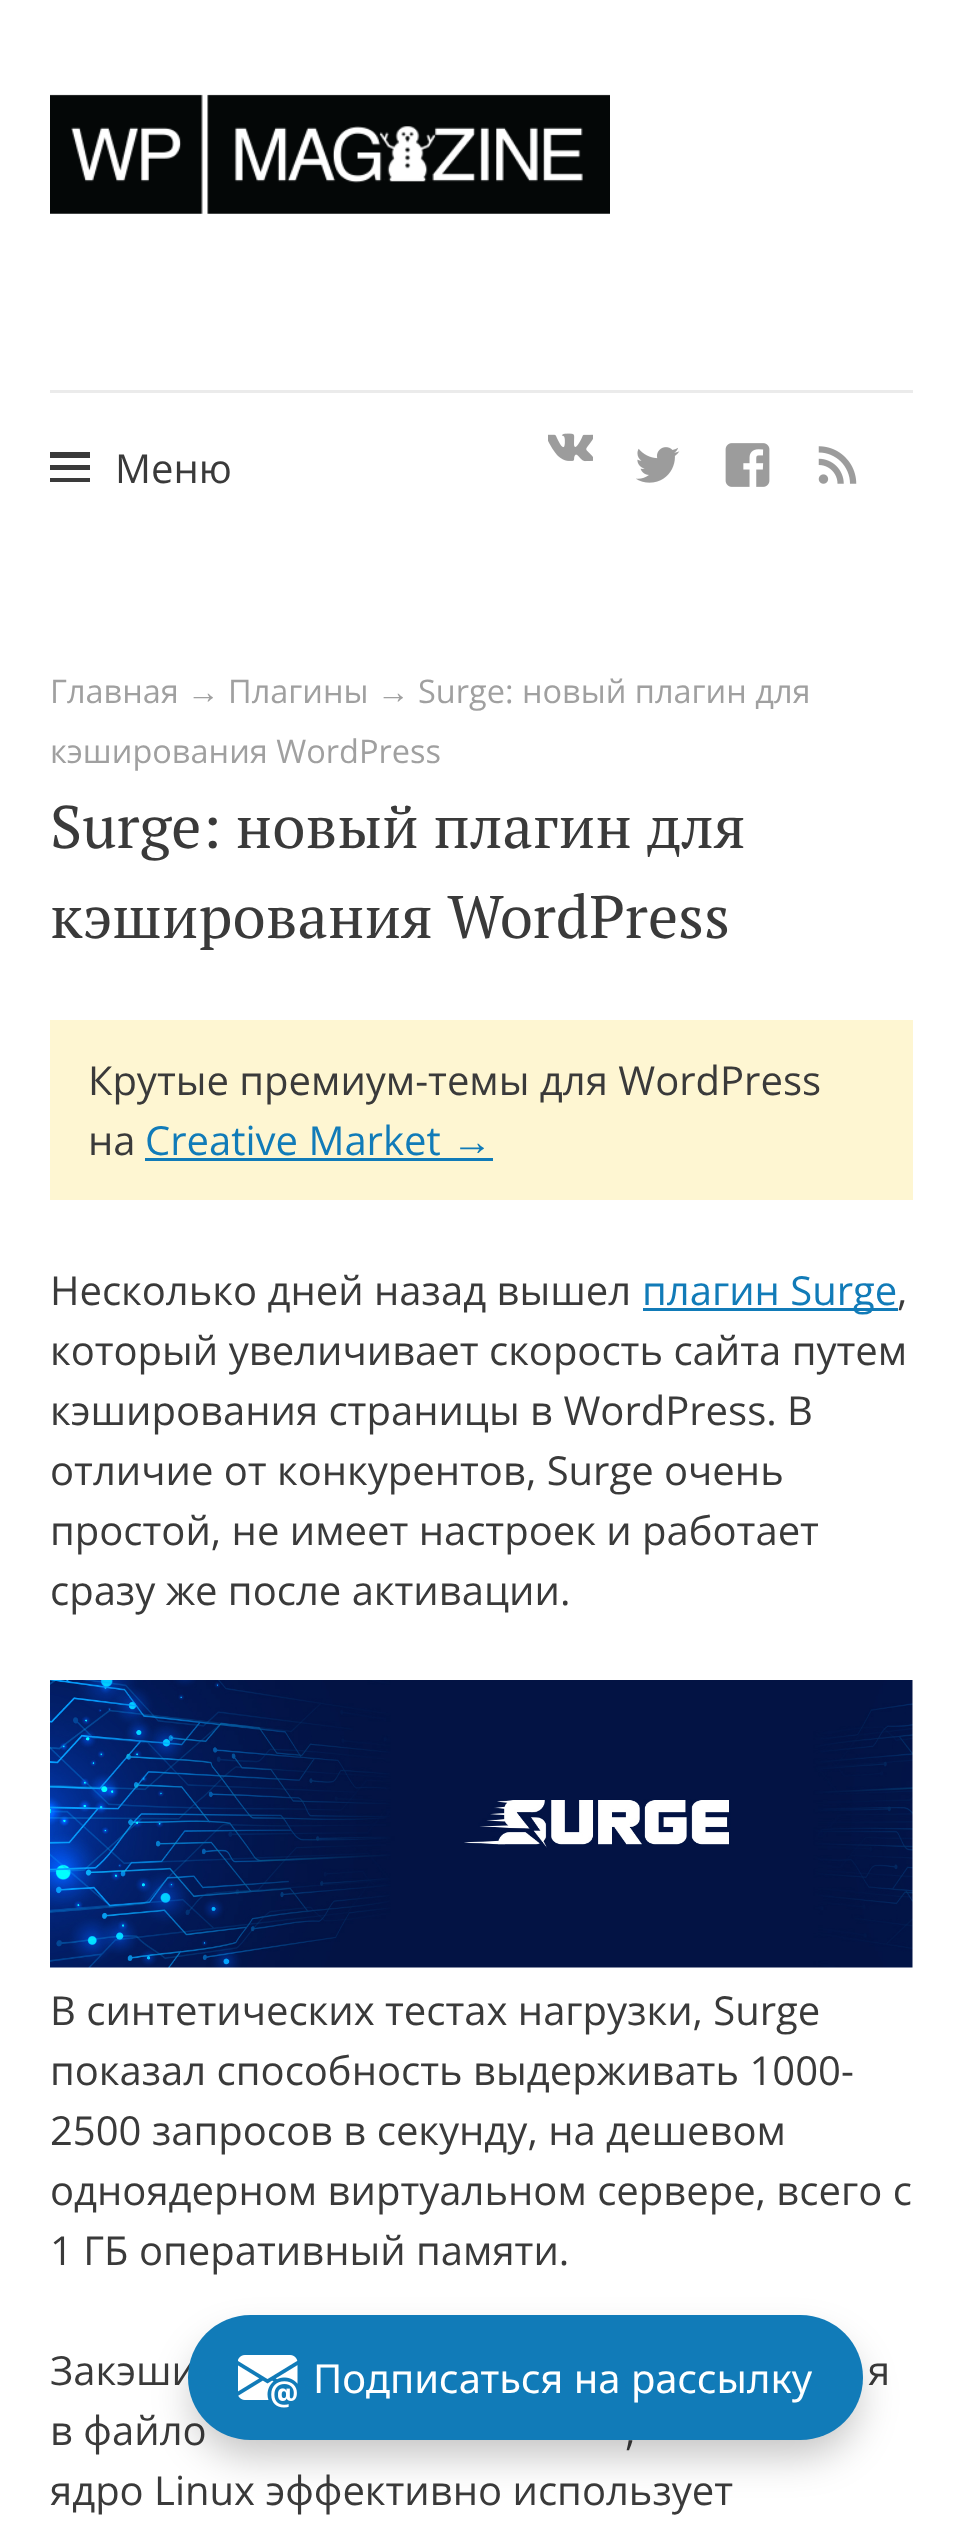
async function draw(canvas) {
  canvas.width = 962
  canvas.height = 2539
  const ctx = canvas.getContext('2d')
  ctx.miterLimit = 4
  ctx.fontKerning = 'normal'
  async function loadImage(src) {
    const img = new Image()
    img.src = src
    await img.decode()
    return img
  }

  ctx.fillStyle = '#fff'
  ctx.fillRect(0, 0, 962, 2539)
  ctx.drawImage(await loadImage('image0.png'), 50, 94, 560, 120)
  ctx.fillStyle = '#ebebeb'
  ctx.fillRect(50, 390, 863, 3)
  ctx.fillStyle = '#3a3a3a'
  ctx.beginPath()
  ctx.moveTo(90, 452)
  ctx.lineTo(90, 458)
  ctx.lineTo(50, 458)
  ctx.lineTo(50, 452)
  ctx.closePath()
  ctx.moveTo(50, 465)
  ctx.lineTo(90, 465)
  ctx.lineTo(90, 470)
  ctx.lineTo(50, 470)
  ctx.closePath()
  ctx.moveTo(50, 478)
  ctx.lineTo(90, 478)
  ctx.lineTo(90, 482)
  ctx.lineTo(50, 482)
  ctx.closePath()
  ctx.fill()
  ctx.font = '40px Open Sans'
  ctx.fillText('Меню', 115, 483)
  ctx.drawImage(await loadImage('image1.png'), 548, 433, 45, 29)
  ctx.drawImage(await loadImage('image2.png'), 636, 447, 44, 36)
  ctx.drawImage(await loadImage('image3.png'), 725, 443, 45, 44)
  ctx.drawImage(await loadImage('image4.png'), 818, 446, 39, 38)
  ctx.font = '32.5px Open Sans'
  ctx.fillStyle = '#a0a0a0'
  ctx.fillText('Главная', 50, 703)
  ctx.font = '32.5px Liberation Sans'
  ctx.fillText('→', 187, 703)
  ctx.font = '32.5px Open Sans'
  ctx.fillText('Плагины', 228, 703)
  ctx.font = '32.5px Liberation Sans'
  ctx.fillText('→', 377, 703)
  ctx.font = '32.5px Open Sans'
  ctx.fillText('Surge: новый плагин для', 418, 703)
  ctx.fillText('кэширования WordPress', 50, 763)
  ctx.font = '60px PT Serif'
  ctx.fillStyle = '#3a3a3a'
  ctx.fillText('Surge: новый плагин для', 50, 848)
  ctx.fillText('кэширования WordPress', 50, 938)
  ctx.fillStyle = '#fef6d2'
  ctx.fillRect(50, 1020, 863, 180)
  ctx.font = '40px Open Sans'
  ctx.fillStyle = '#3a3a3a'
  ctx.fillText('Крутые премиум-темы для WordPress', 88, 1095)
  ctx.fillText('на', 88, 1155)
  ctx.fillStyle = '#117bb8'
  ctx.fillText('Creative Market', 145, 1155)
  ctx.font = '40px Liberation Sans'
  ctx.fillText('→', 452, 1155)
  ctx.fillRect(145, 1158, 348, 3)
  ctx.font = '40px Open Sans'
  ctx.fillStyle = '#3a3a3a'
  ctx.fillText('Несколько дней назад вышел', 50, 1305)
  ctx.fillStyle = '#117bb8'
  ctx.fillRect(643, 1308, 255, 3)
  ctx.fillText('плагин Surge', 642, 1305)
  ctx.fillStyle = '#3a3a3a'
  ctx.fillText(',', 897, 1305)
  ctx.fillText('который увеличивает скорость сайта путем', 50, 1365)
  ctx.fillText('кэширования страницы в WordPress. В', 50, 1425)
  ctx.fillText('отличие от конкурентов, Surge очень', 50, 1485)
  ctx.fillText('простой, не имеет настроек и работает', 50, 1545)
  ctx.fillText('сразу же после активации.', 50, 1605)
  ctx.drawImage(await loadImage('image5.png'), 50, 1680, 863, 288)
  ctx.fillText('В синтетических тестах нагрузки, Surge', 50, 2025)
  ctx.fillText('показал способность выдерживать 1000-', 50, 2085)
  ctx.fillText('2500 запросов в секунду, на дешевом', 50, 2145)
  ctx.fillText('одноядерном виртуальном сервере, всего с', 50, 2205)
  ctx.fillText('1 ГБ оперативный памяти.', 50, 2265)
  ctx.fillText('Закэши', 50, 2385)
  ctx.fillText('я', 868, 2385)
  ctx.fillText('в файло', 50, 2445)
  ctx.fillText(',', 625, 2445)
  ctx.fillText('ядро Linux эффективно использует', 50, 2505)
  ctx.fillStyle = '#0000003d'
  ctx.filter = 'blur(20px)'
  ctx.beginPath()
  ctx.roundRect(193, 2340, 665, 115, 57.5)
  ctx.fill()
  ctx.filter = 'none'
  ctx.fillStyle = '#117bb8'
  ctx.beginPath()
  ctx.roundRect(188, 2315, 675, 125, 62.5)
  ctx.fill()
  ctx.drawImage(await loadImage('image6.png'), 238, 2355, 60, 53)
  ctx.font = '40px Noto Sans'
  ctx.fillStyle = '#fff'
  ctx.fillText('Подписаться на рассылку', 313, 2393)
}

draw(document.querySelector('canvas'))
